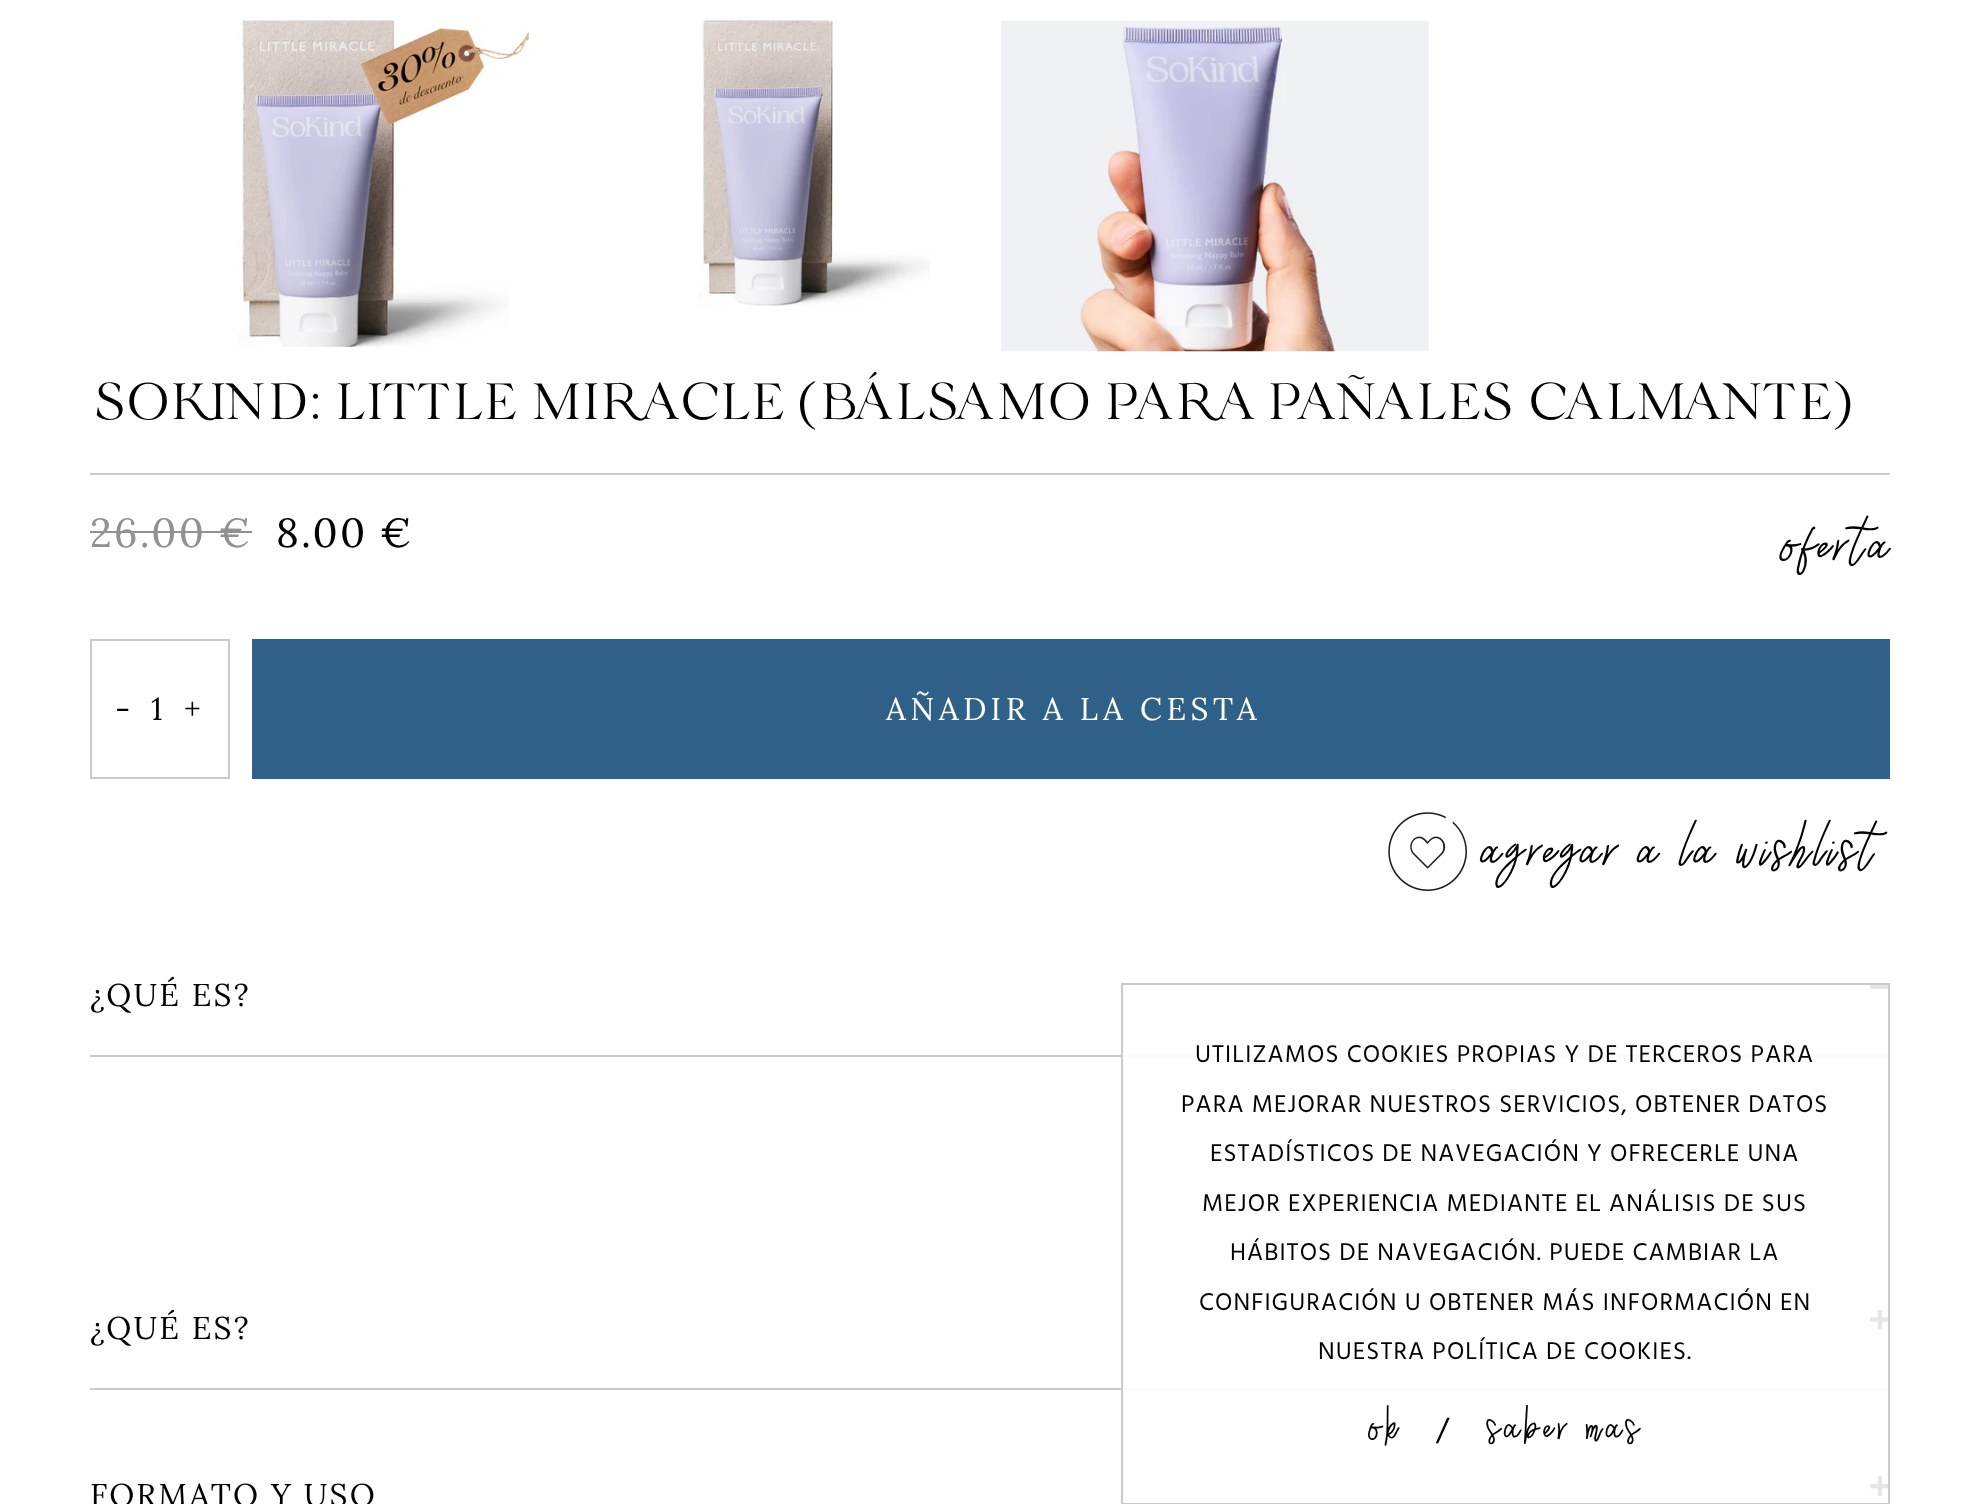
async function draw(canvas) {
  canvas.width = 1979
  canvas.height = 1504
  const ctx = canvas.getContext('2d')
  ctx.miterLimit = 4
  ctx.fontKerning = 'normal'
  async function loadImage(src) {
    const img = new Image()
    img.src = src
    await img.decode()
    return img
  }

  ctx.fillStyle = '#fff'
  ctx.fillRect(0, 0, 1979, 1504)
  ctx.drawImage(await loadImage('image0.png'), 237, 20, 292, 327)
  ctx.drawImage(await loadImage('image1.png'), 697, 20, 233, 286)
  ctx.drawImage(await loadImage('image2.png'), 1001, 20, 428, 332)
  ctx.fillStyle = '#cacaca'
  ctx.fillRect(90, 473, 1800, 2)
  ctx.font = '54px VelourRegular'
  ctx.fillStyle = '#000'
  ctx.fillText('SOKIND: LITTLE MIRACLE (BÁLSAMO PARA PAÑALES CALMANTE)', 90, 419)
  ctx.letterSpacing = '2.25px'
  ctx.font = '40.5px Lora'
  ctx.fillStyle = '#919191'
  ctx.fillText('26.00 €', 90, 547)
  ctx.fillRect(90, 531, 162, 2)
  ctx.fillStyle = '#000'
  ctx.fillText('8.00 €', 276, 547)
  ctx.letterSpacing = '4.5px'
  ctx.font = 'italic 56.25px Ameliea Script'
  ctx.fillText('oferta', 1778, 561)
  ctx.strokeStyle = '#cacaca'
  ctx.lineWidth = 2
  ctx.strokeRect(91, 640, 138, 138)
  ctx.letterSpacing = '2.25px'
  ctx.font = '31.5px Lora'
  ctx.fillText('-', 115, 720)
  ctx.fillText('1', 151, 720)
  ctx.fillText('+', 184, 720)
  ctx.fillStyle = '#2f6088'
  ctx.fillRect(252, 639, 1638, 140)
  ctx.letterSpacing = '4.5px'
  ctx.fillStyle = '#fff'
  ctx.fillText('AÑADIR A LA CESTA', 886, 720)
  ctx.drawImage(await loadImage('image3.png'), 1388, 812, 79, 79)
  ctx.font = 'italic 56.25px Ameliea Script'
  ctx.fillStyle = '#000'
  ctx.fillText('agregar a la wishlist', 1478, 866)
  ctx.fillStyle = '#cacaca'
  ctx.fillRect(90, 1055, 1031, 2)
  ctx.fillStyle = '#fafafa'
  ctx.fillRect(1121, 1055, 769, 2)
  ctx.letterSpacing = '2.25px'
  ctx.font = '31.5px Lora'
  ctx.fillStyle = '#000'
  ctx.fillText('¿QUÉ ES?', 90, 1006)
  ctx.fillStyle = '#e6e6e6'
  ctx.fillRect(1870, 985, 20, 4)
  ctx.fillStyle = '#cacaca'
  ctx.fillRect(90, 1388, 1031, 2)
  ctx.fillStyle = '#fafafa'
  ctx.fillRect(1121, 1388, 769, 2)
  ctx.fillStyle = '#000'
  ctx.fillText('¿QUÉ ES?', 90, 1339)
  ctx.drawImage(await loadImage('image4.png'), 1870, 1310, 18, 20)
  ctx.fillText('FORMATO Y USO', 90, 1506)
  ctx.drawImage(await loadImage('image5.png'), 1870, 1476, 18, 20)
  ctx.strokeRect(1122, 984, 767, 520)
  ctx.letterSpacing = '1.1px'
  ctx.font = '24.75px Hind'
  ctx.fillText('UTILIZAMOS COOKIES PROPIAS Y DE TERCEROS PARA', 1195, 1062)
  ctx.fillText('PARA MEJORAR NUESTROS SERVICIOS, OBTENER DATOS', 1181, 1112)
  ctx.fillText('ESTADÍSTICOS DE NAVEGACIÓN Y OFRECERLE UNA', 1210, 1161)
  ctx.fillText('MEJOR EXPERIENCIA MEDIANTE EL ANÁLISIS DE SUS', 1202, 1211)
  ctx.fillText('HÁBITOS DE NAVEGACIÓN. PUEDE CAMBIAR LA', 1230, 1260)
  ctx.fillText('CONFIGURACIÓN U OBTENER MÁS INFORMACIÓN EN', 1199, 1310)
  ctx.fillText('NUESTRA POLÍTICA DE COOKIES.', 1318, 1359)
  ctx.letterSpacing = '4.5px'
  ctx.font = '45px Ameliea Script'
  ctx.fillText('ok', 1368, 1440)
  ctx.font = '31.5px Hind'
  ctx.fillText('/', 1436, 1440)
  ctx.font = '45px Ameliea Script'
  ctx.fillText('saber mas', 1487, 1440)
}

draw(document.querySelector('canvas'))
